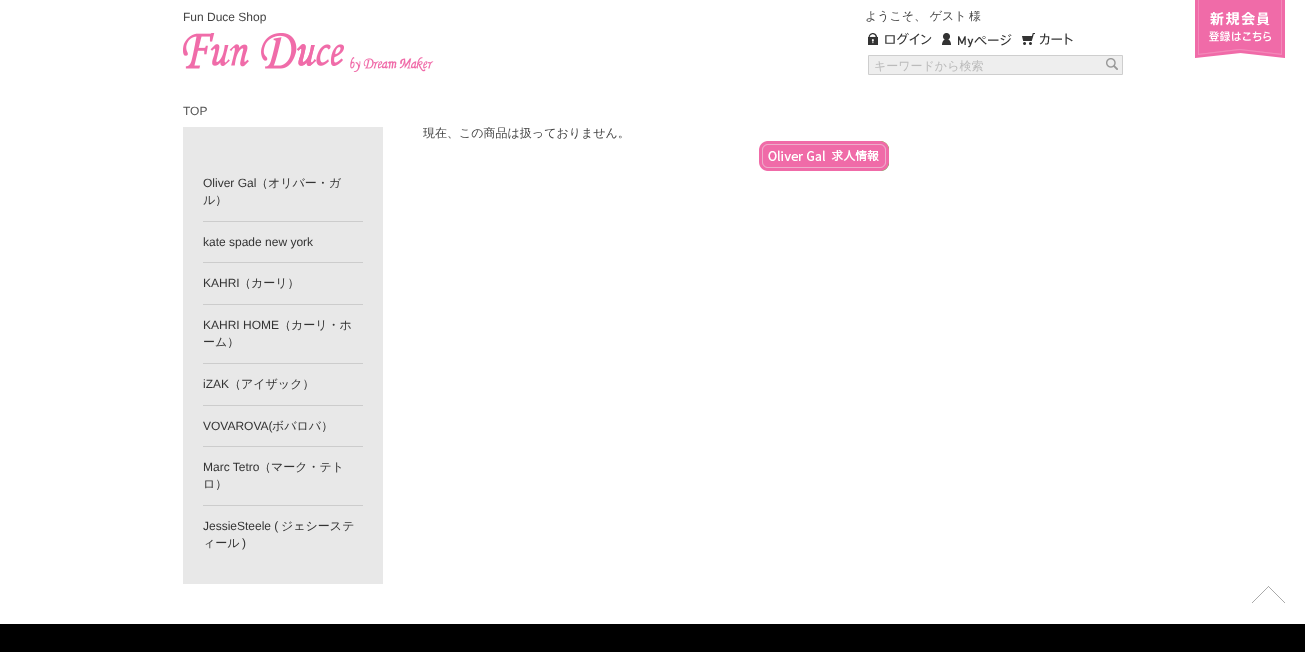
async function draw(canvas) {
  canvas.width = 1305
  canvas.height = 652
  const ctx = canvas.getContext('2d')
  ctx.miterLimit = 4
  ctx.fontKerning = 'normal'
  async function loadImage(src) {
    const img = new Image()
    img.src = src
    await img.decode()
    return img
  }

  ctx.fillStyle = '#fff'
  ctx.fillRect(0, 0, 1305, 652)
  ctx.font = '12px Liberation Sans'
  ctx.fillStyle = '#444'
  ctx.fillText('Fun Duce Shop', 183, 21)
  ctx.drawImage(await loadImage('image0.png'), 183, 33, 251, 39)
  ctx.font = '500 12px WenQuanYi Zen Hei'
  ctx.fillText('ようこそ、 ゲスト', 865, 20)
  ctx.save()
  ctx.beginPath()
  ctx.rect(855, 11, 268, 21)
  ctx.clip()
  ctx.fillText('様', 969, 20)
  ctx.restore()
  ctx.drawImage(await loadImage('image1.png'), 868, 32, 64, 13)
  ctx.drawImage(await loadImage('image2.png'), 942, 33, 70, 15)
  ctx.drawImage(await loadImage('image3.png'), 1022, 33, 51, 12)
  ctx.fillStyle = '#eee'
  ctx.beginPath()
  ctx.rect(868.5, 55.5, 254, 19)
  ctx.fill()
  ctx.strokeStyle = '#cecece'
  ctx.stroke()
  ctx.fillStyle = '#bbb'
  ctx.fillText('キーワードから検索', 874, 70)
  ctx.drawImage(await loadImage('image4.png'), 1106, 58, 12, 12)
  ctx.drawImage(await loadImage('image5.png'), 1195, 0, 90, 58)
  ctx.font = '12px Liberation Sans'
  ctx.fillStyle = '#535353'
  ctx.fillText('TOP', 183, 115)
  ctx.save()
  ctx.beginPath()
  ctx.rect(423, 127, 700, 46)
  ctx.clip()
  ctx.font = '500 12px WenQuanYi Zen Hei'
  ctx.fillStyle = '#444'
  ctx.fillText('現在、この商品は扱っておりません。', 423, 137)
  ctx.restore()
  ctx.drawImage(await loadImage('image6.png'), 759, 141, 130, 30)
  ctx.fillStyle = '#e8e8e8'
  ctx.fillRect(183, 127, 200, 457)
  ctx.fillStyle = '#ccc'
  ctx.fillRect(203, 221, 160, 1)
  ctx.fillStyle = '#333'
  ctx.fillText('Oliver Gal', 203, 187)
  ctx.font = '500 12px WenQuanYi Zen Hei'
  ctx.fillText('（オリバー・ガ', 256, 187)
  ctx.fillText('ル）', 203, 204)
  ctx.fillStyle = '#ccc'
  ctx.fillRect(203, 262, 160, 1)
  ctx.font = '12px Liberation Sans'
  ctx.fillStyle = '#333'
  ctx.fillText('kate spade new york', 203, 246)
  ctx.fillStyle = '#ccc'
  ctx.fillRect(203, 304, 160, 1)
  ctx.fillStyle = '#333'
  ctx.fillText('KAHRI', 203, 287)
  ctx.font = '500 12px WenQuanYi Zen Hei'
  ctx.fillText('（カーリ）', 239, 287)
  ctx.fillStyle = '#ccc'
  ctx.fillRect(203, 363, 160, 1)
  ctx.font = '12px Liberation Sans'
  ctx.fillStyle = '#333'
  ctx.fillText('KAHRI HOME', 203, 329)
  ctx.font = '500 12px WenQuanYi Zen Hei'
  ctx.fillText('（カーリ・ホ', 279, 329)
  ctx.fillText('ーム）', 203, 346)
  ctx.fillStyle = '#ccc'
  ctx.fillRect(203, 405, 160, 1)
  ctx.font = '12px Liberation Sans'
  ctx.fillStyle = '#333'
  ctx.fillText('iZAK', 203, 388)
  ctx.font = '500 12px WenQuanYi Zen Hei'
  ctx.fillText('（アイザック）', 229, 388)
  ctx.fillStyle = '#ccc'
  ctx.fillRect(203, 446, 160, 1)
  ctx.font = '12px Liberation Sans'
  ctx.fillStyle = '#333'
  ctx.fillText('VOVAROVA(', 203, 430)
  ctx.font = '500 12px WenQuanYi Zen Hei'
  ctx.fillText('ボバロバ）', 272, 430)
  ctx.fillStyle = '#ccc'
  ctx.fillRect(203, 505, 160, 1)
  ctx.font = '12px Liberation Sans'
  ctx.fillStyle = '#333'
  ctx.fillText('Marc Tetro', 203, 471)
  ctx.font = '500 12px WenQuanYi Zen Hei'
  ctx.fillText('（マーク・テト', 259, 471)
  ctx.fillText('ロ）', 203, 488)
  ctx.font = '12px Liberation Sans'
  ctx.fillText('JessieSteele (', 203, 530)
  ctx.font = '500 12px WenQuanYi Zen Hei'
  ctx.fillText('ジェシーステ', 281, 530)
  ctx.fillText('ィール', 203, 547)
  ctx.font = '12px Liberation Sans'
  ctx.fillText(')', 242, 547)
  ctx.drawImage(await loadImage('image7.png'), 1252, 586, 33, 17)
  ctx.fillStyle = '#000'
  ctx.fillRect(0, 624, 1305, 28)
}

draw(document.querySelector('canvas'))
